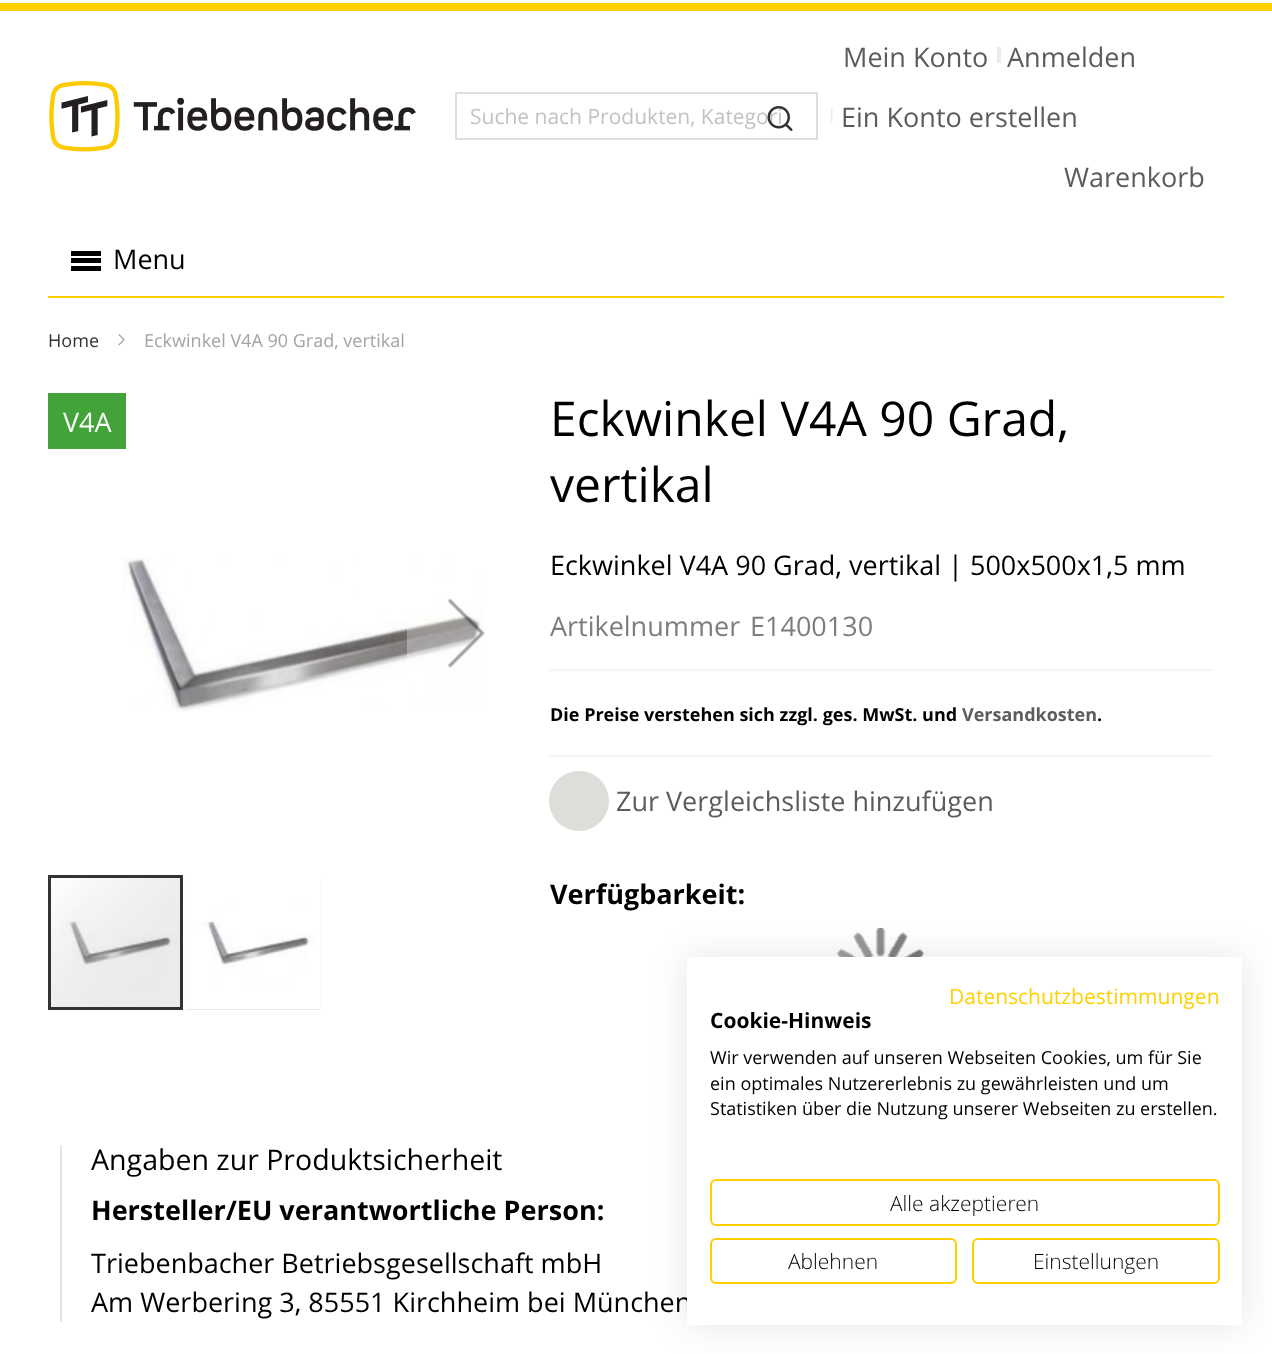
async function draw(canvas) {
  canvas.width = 1272
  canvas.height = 1354
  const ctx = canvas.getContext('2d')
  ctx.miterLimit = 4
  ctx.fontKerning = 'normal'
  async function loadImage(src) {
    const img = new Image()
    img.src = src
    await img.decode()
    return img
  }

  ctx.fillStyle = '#fff'
  ctx.fillRect(0, 0, 1272, 1354)
  ctx.fillStyle = '#ffcf00'
  ctx.fillRect(0, 3, 1272, 8)
  ctx.drawImage(await loadImage('image0.png'), 49, 81, 367, 71)
  ctx.beginPath()
  ctx.roundRect(456, 93, 361, 46, 0.5)
  ctx.strokeStyle = '#deddd9'
  ctx.lineWidth = 2
  ctx.stroke()
  ctx.font = '21px Open Sans'
  ctx.fillStyle = '#c2c2c2'
  ctx.fillText('Suche nach Produkten, Kategori', 470, 124)
  ctx.drawImage(await loadImage('image1.png'), 767, 106, 26, 25)
  ctx.font = '27px Open Sans'
  ctx.fillStyle = '#5c5c5a'
  ctx.fillText('Mein Konto', 843, 67)
  ctx.fillStyle = '#ebebeb'
  ctx.fillRect(997, 47, 4, 16)
  ctx.fillStyle = '#5c5c5a'
  ctx.fillText('Anmelden', 1007, 67)
  ctx.drawImage(await loadImage('image2.png'), 831, 107, 2, 16)
  ctx.fillText('Ein Konto erstellen', 841, 127)
  ctx.fillText('Warenkorb', 1064, 187)
  ctx.fillStyle = '#000'
  ctx.fillRect(71, 251, 30, 5)
  ctx.fillRect(71, 258, 30, 5)
  ctx.fillRect(71, 266, 30, 5)
  ctx.fillText('Menu', 113, 269)
  ctx.fillStyle = '#ffcf00'
  ctx.fillRect(48, 296, 1176, 2)
  ctx.font = '18px Open Sans'
  ctx.fillStyle = '#333'
  ctx.fillText('Home', 48, 347)
  ctx.drawImage(await loadImage('image3.png'), 118, 334, 7, 12)
  ctx.fillStyle = '#a3a3a3'
  ctx.fillText('Eckwinkel V4A 90 Grad, vertikal', 144, 347)
  ctx.fillStyle = '#42a338'
  ctx.fillRect(48, 393, 78, 56)
  ctx.font = '27px Open Sans'
  ctx.fillStyle = '#fff'
  ctx.fillText('V4A', 63, 432)
  ctx.drawImage(await loadImage('image4.png'), 123, 557, 361, 155)
  ctx.fillStyle = '#ffffff4d'
  ctx.fillRect(407, 614, 74, 46)
  ctx.drawImage(await loadImage('image5.png'), 448, 598, 37, 70)
  ctx.drawImage(await loadImage('image7.png'), 51, 878, 129, 129)
  ctx.strokeStyle = '#333'
  ctx.lineWidth = 3
  ctx.strokeRect(49.5, 876.5, 132, 132)
  ctx.fillStyle = '#ebebeb'
  ctx.fillRect(186, 875, 135, 135)
  ctx.drawImage(await loadImage('image6.png'), 186, 875, 135, 134)
  ctx.font = '48px Open Sans'
  ctx.fillStyle = '#000'
  ctx.fillText('Eckwinkel V4A 90 Grad,', 550, 436)
  ctx.fillText('vertikal', 550, 502)
  ctx.font = '27px Open Sans'
  ctx.fillText('Eckwinkel V4A 90 Grad, vertikal | 500x500x1,5 mm', 550, 575)
  ctx.fillStyle = '#f5f5f5'
  ctx.fillRect(549, 669, 663, 2)
  ctx.fillStyle = '#7d7d7d'
  ctx.fillText('Artikelnummer', 550, 636)
  ctx.fillText('E1400130', 750, 636)
  ctx.font = 'bold 18px Open Sans'
  ctx.fillStyle = '#000'
  ctx.fillText('Die Preise verstehen sich zzgl. ges. MwSt. und', 550, 721)
  ctx.fillStyle = '#5c5c5a'
  ctx.fillText('Versandkosten', 962, 721)
  ctx.fillStyle = '#000'
  ctx.fillText('.', 1097, 721)
  ctx.fillStyle = '#f5f5f5'
  ctx.fillRect(549, 755, 663, 2)
  ctx.fillStyle = '#deddd9'
  ctx.beginPath()
  ctx.arc(579, 801, 30, 0, 2 * Math.PI)
  ctx.fill()
  ctx.font = '27px Open Sans'
  ctx.fillStyle = '#5c5c5a'
  ctx.fillText('Zur Vergleichsliste hinzufügen', 616, 811)
  ctx.font = 'bold 27px Open Sans'
  ctx.fillStyle = '#000'
  ctx.fillText('Verfügbarkeit:', 550, 904)
  ctx.drawImage(await loadImage('image8.png'), 836, 928, 89, 29)
  ctx.fillStyle = '#e5e5e5'
  ctx.fillRect(60, 1145, 2, 177)
  ctx.font = '28.5px Open Sans'
  ctx.fillStyle = '#000'
  ctx.fillText('Angaben zur Produktsicherheit', 91, 1170)
  ctx.font = 'bold 27px Open Sans'
  ctx.fillText('Hersteller/EU verantwortliche Person:', 91, 1220)
  ctx.font = '27px Open Sans'
  ctx.fillText('Triebenbacher Betriebsgesellschaft mbH', 91, 1273)
  ctx.fillText('Am Werbering 3, 85551 Kirchheim bei München', 91, 1312)
  ctx.fillStyle = '#0000001a'
  ctx.filter = 'blur(18px)'
  ctx.beginPath()
  ctx.rect(687, 957, 555, 368)
  ctx.fill()
  ctx.filter = 'none'
  ctx.fillStyle = '#fff'
  ctx.fillRect(687, 957, 555, 368)
  ctx.font = '21px Open Sans'
  ctx.fillStyle = '#ffcf00'
  ctx.fillText('Datenschutzbestimmungen', 949, 1004)
  ctx.font = 'bold 21px Open Sans'
  ctx.fillStyle = '#000'
  ctx.fillText('Cookie-Hinweis', 710, 1028)
  ctx.font = '18px Open Sans'
  ctx.fillText('Wir verwenden auf unseren Webseiten Cookies, um für Sie', 710, 1064)
  ctx.fillText('ein optimales Nutzererlebnis zu gewährleisten und um', 710, 1090)
  ctx.fillText('Statistiken über die Nutzung unserer Webseiten zu erstellen.', 710, 1115)
  ctx.beginPath()
  ctx.roundRect(711, 1180, 508, 45, 5)
  ctx.strokeStyle = '#ffcf00'
  ctx.lineWidth = 2
  ctx.stroke()
  ctx.font = '300 21px Open Sans'
  ctx.fillText('Alle akzeptieren', 890, 1211)
  ctx.beginPath()
  ctx.roundRect(711, 1239, 245, 44, 5)
  ctx.stroke()
  ctx.fillText('Ablehnen', 788, 1269)
  ctx.beginPath()
  ctx.roundRect(973, 1239, 246, 44, 5)
  ctx.stroke()
  ctx.fillText('Einstellungen', 1033, 1269)
}

draw(document.querySelector('canvas'))
